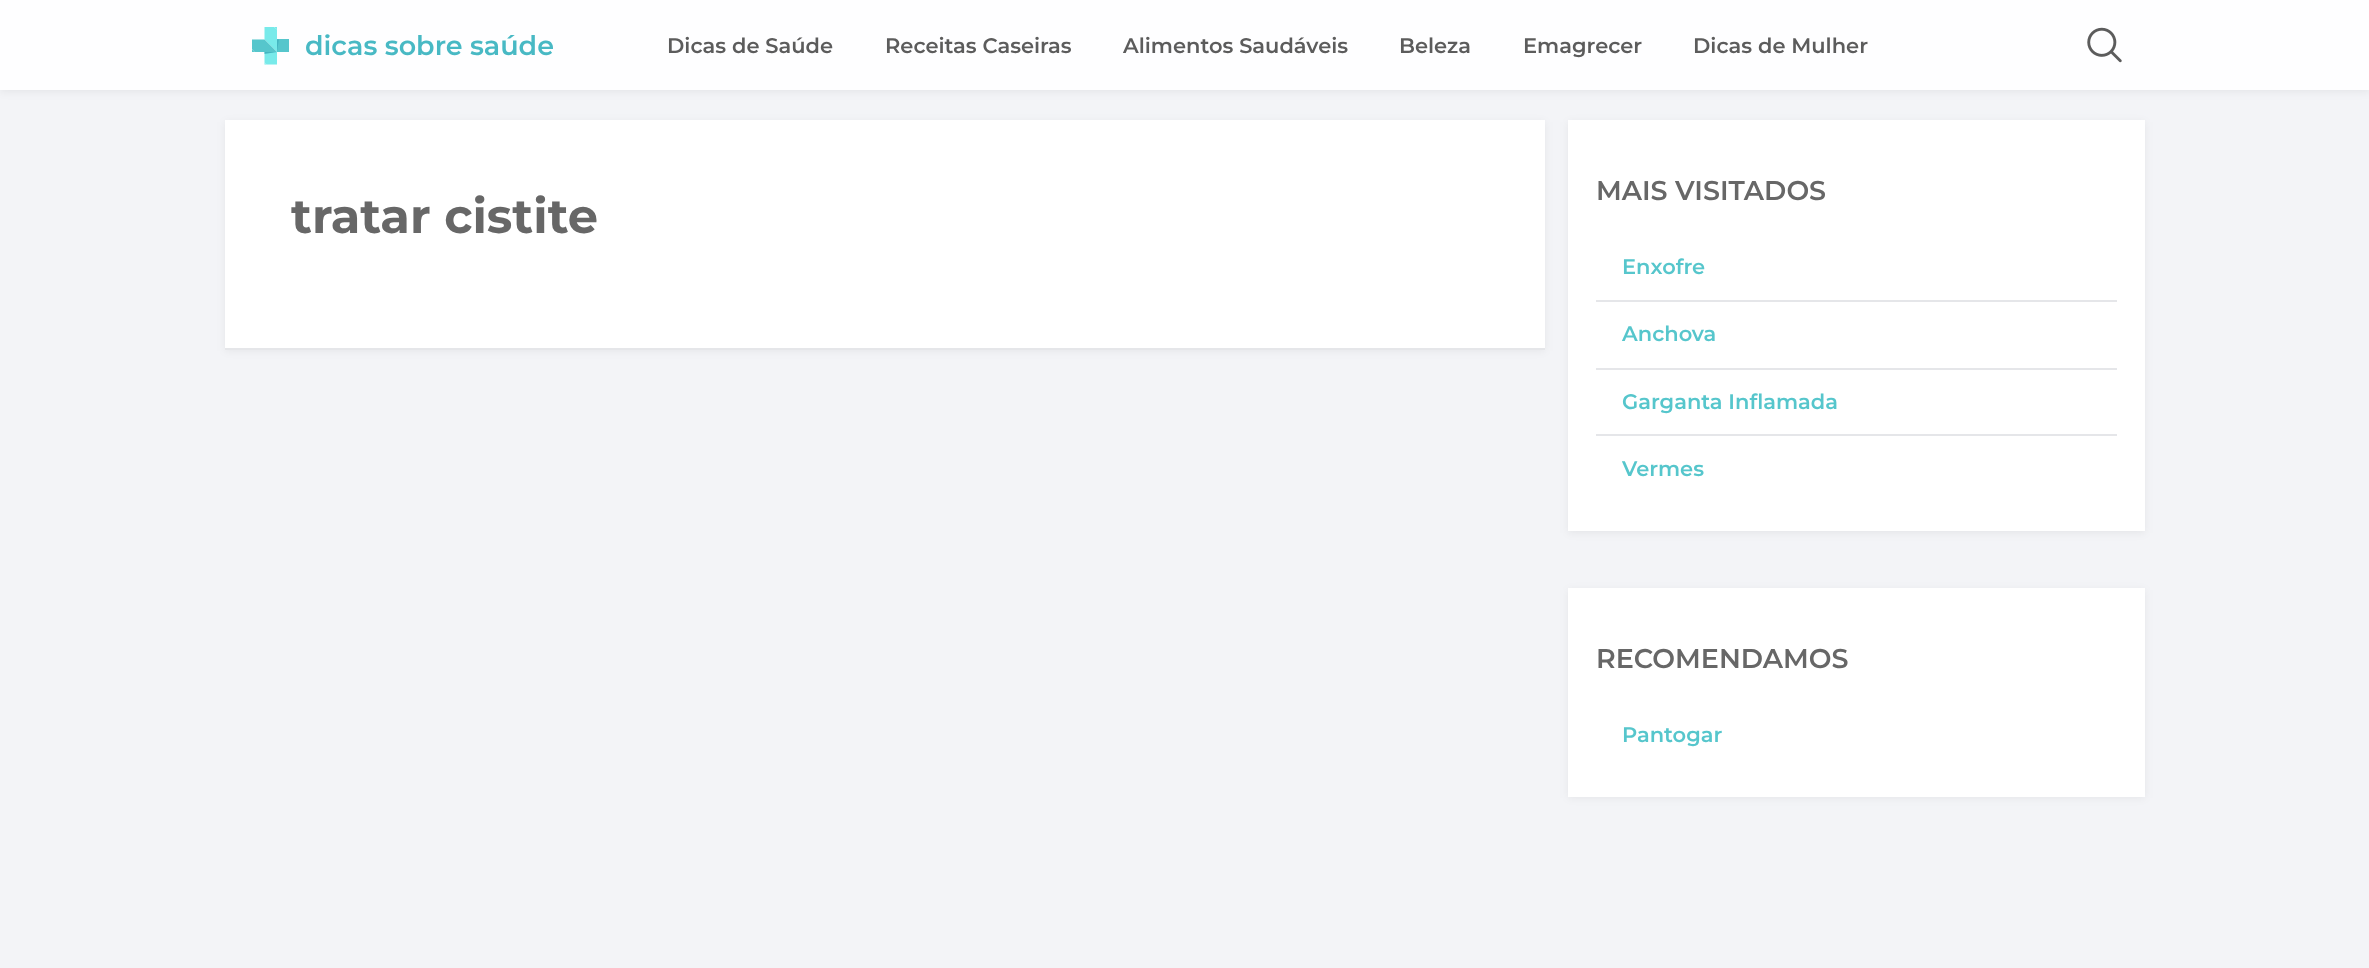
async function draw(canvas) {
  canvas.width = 2369
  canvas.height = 968
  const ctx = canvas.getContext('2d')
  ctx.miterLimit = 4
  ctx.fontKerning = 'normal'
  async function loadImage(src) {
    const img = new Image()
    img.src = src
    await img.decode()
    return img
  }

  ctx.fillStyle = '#f3f4f7'
  ctx.fillRect(0, 0, 2369, 968)
  ctx.fillStyle = '#0000000f'
  ctx.filter = 'blur(4px)'
  ctx.beginPath()
  ctx.rect(0, 2, 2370, 90)
  ctx.fill()
  ctx.filter = 'none'
  ctx.fillStyle = '#fefeff'
  ctx.fillRect(0, 0, 2369, 90)
  ctx.drawImage(await loadImage('image0.png'), 252, 27, 37, 38)
  ctx.font = '600 27px Montserrat'
  ctx.fillStyle = '#48b9c4'
  ctx.fillText('dicas sobre saúde', 305, 55)
  ctx.font = '600 21px Montserrat'
  ctx.fillStyle = '#5c5c5c'
  ctx.fillText('Dicas de Saúde', 667, 53)
  ctx.fillText('Receitas Caseiras', 885, 53)
  ctx.fillText('Alimentos Saudáveis', 1123, 53)
  ctx.fillText('Beleza', 1399, 53)
  ctx.fillText('Emagrecer', 1523, 53)
  ctx.fillText('Dicas de Mulher', 1693, 53)
  ctx.drawImage(await loadImage('image1.png'), 2087, 27, 35, 36)
  ctx.fillStyle = '#0000000f'
  ctx.filter = 'blur(4px)'
  ctx.beginPath()
  ctx.rect(225, 122, 1320, 229)
  ctx.fill()
  ctx.filter = 'none'
  ctx.fillStyle = '#fff'
  ctx.fillRect(225, 120, 1320, 228)
  ctx.fillStyle = '#e5e6e9'
  ctx.fillRect(225, 348, 1320, 2)
  ctx.font = 'bold 48px Montserrat'
  ctx.fillStyle = '#676767'
  ctx.fillText('tratar cistite', 291, 233)
  ctx.fillStyle = '#0000000f'
  ctx.filter = 'blur(4px)'
  ctx.beginPath()
  ctx.rect(1568, 122, 577, 411)
  ctx.fill()
  ctx.filter = 'none'
  ctx.fillStyle = '#fff'
  ctx.fillRect(1568, 120, 577, 411)
  ctx.font = '600 27px Montserrat'
  ctx.fillStyle = '#676767'
  ctx.fillText('MAIS VISITADOS', 1596, 200)
  ctx.font = '600 21px Montserrat'
  ctx.fillStyle = '#56c6cc'
  ctx.fillText('Enxofre', 1622, 274)
  ctx.fillStyle = '#e5e6e9'
  ctx.fillRect(1596, 300, 521, 2)
  ctx.fillStyle = '#56c6cc'
  ctx.fillText('Anchova', 1622, 341)
  ctx.fillStyle = '#e5e6e9'
  ctx.fillRect(1596, 368, 521, 2)
  ctx.fillStyle = '#56c6cc'
  ctx.fillText('Garganta Inflamada', 1622, 409)
  ctx.fillStyle = '#e5e6e9'
  ctx.fillRect(1596, 434, 521, 2)
  ctx.fillStyle = '#56c6cc'
  ctx.fillText('Vermes', 1622, 476)
  ctx.fillStyle = '#0000000f'
  ctx.filter = 'blur(4px)'
  ctx.beginPath()
  ctx.rect(1568, 590, 577, 208)
  ctx.fill()
  ctx.filter = 'none'
  ctx.fillStyle = '#fff'
  ctx.fillRect(1568, 588, 577, 209)
  ctx.font = '600 27px Montserrat'
  ctx.fillStyle = '#676767'
  ctx.fillText('RECOMENDAMOS', 1596, 668)
  ctx.font = '600 21px Montserrat'
  ctx.fillStyle = '#56c6cc'
  ctx.fillText('Pantogar', 1622, 742)
}

draw(document.querySelector('canvas'))
